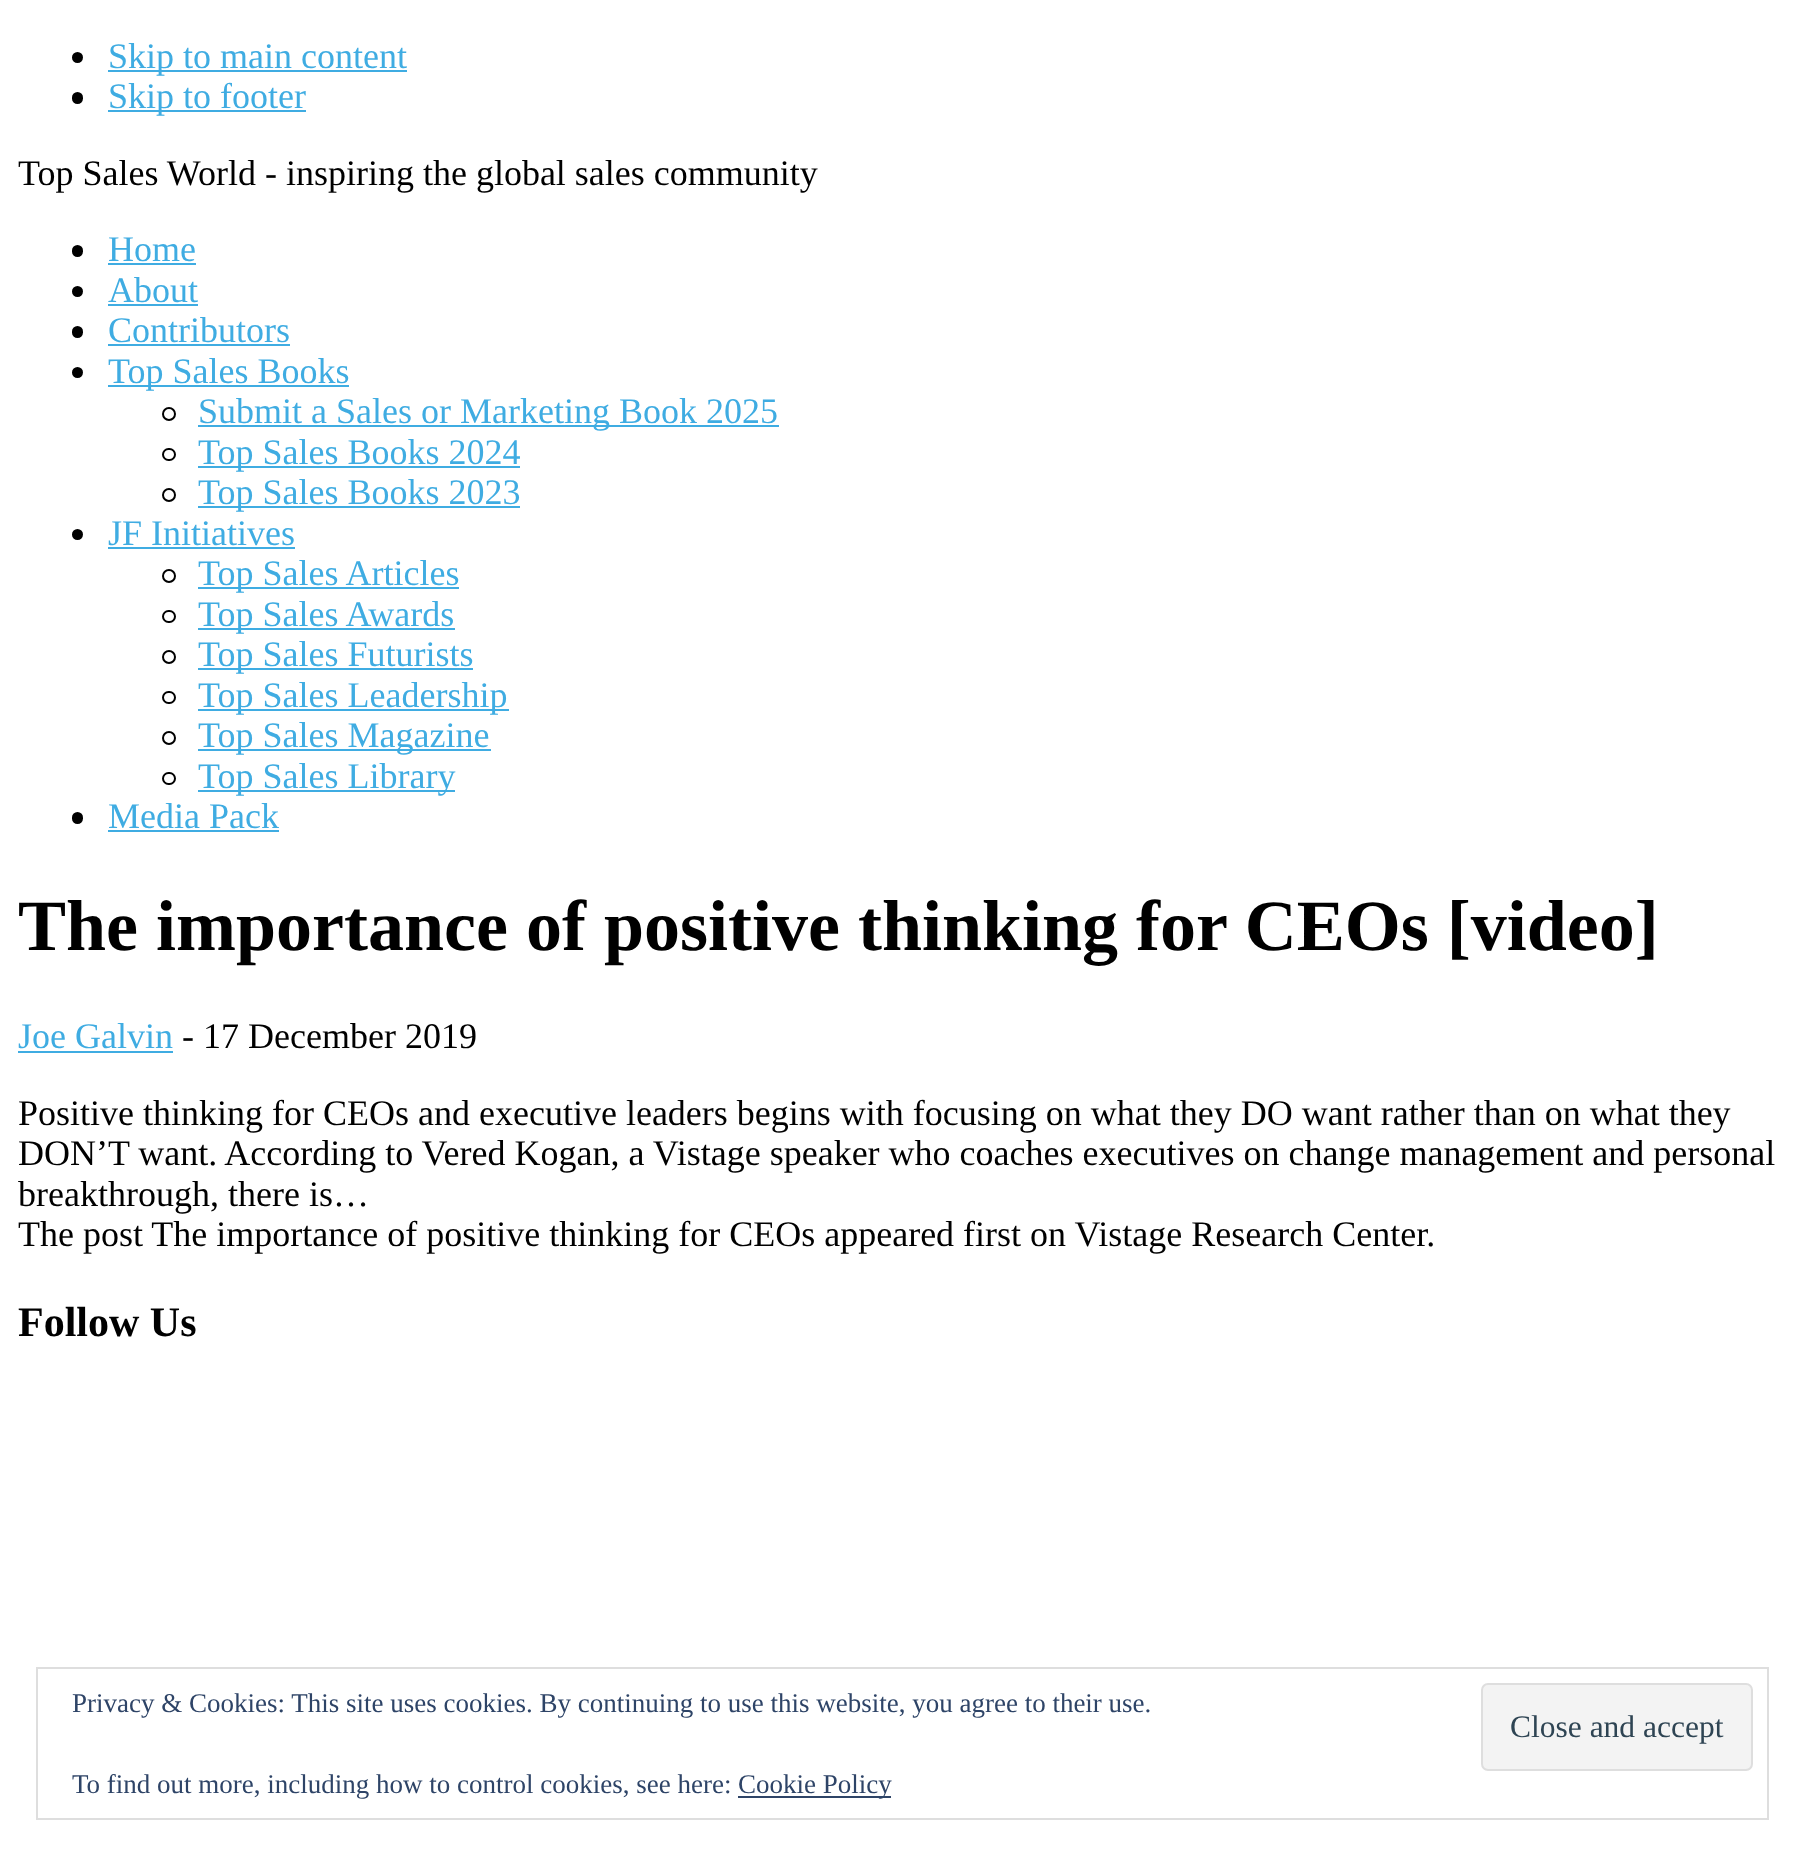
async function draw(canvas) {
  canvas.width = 1804
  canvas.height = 1856
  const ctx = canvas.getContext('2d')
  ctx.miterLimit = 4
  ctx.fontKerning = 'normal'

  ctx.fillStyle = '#fff'
  ctx.fillRect(0, 0, 1804, 1856)
  ctx.fillStyle = '#000'
  ctx.beginPath()
  ctx.arc(77.5, 57.5, 5.5, 0, 2 * Math.PI)
  ctx.fill()
  ctx.fillStyle = '#3face2'
  ctx.fillRect(108, 70, 299, 2)
  ctx.font = '36px Liberation Serif'
  ctx.fillText('Skip to main content', 108, 68)
  ctx.fillStyle = '#000'
  ctx.beginPath()
  ctx.roundRect(72, 92, 11, 12, 5.5)
  ctx.fill()
  ctx.fillStyle = '#3face2'
  ctx.fillRect(108, 110, 198, 2)
  ctx.fillText('Skip to footer', 108, 108)
  ctx.fillStyle = '#000'
  ctx.fillText('Top Sales World - inspiring the global sales community', 18, 185)
  ctx.beginPath()
  ctx.roundRect(72, 245, 11, 12, 5.5)
  ctx.fill()
  ctx.fillStyle = '#3face2'
  ctx.fillText('Home', 108, 261)
  ctx.fillRect(108, 263, 88, 2)
  ctx.fillStyle = '#000'
  ctx.beginPath()
  ctx.arc(77.5, 291.5, 5.5, 0, 2 * Math.PI)
  ctx.fill()
  ctx.fillStyle = '#3face2'
  ctx.fillText('About', 108, 302)
  ctx.fillRect(108, 304, 90, 2)
  ctx.fillStyle = '#000'
  ctx.beginPath()
  ctx.roundRect(72, 326, 11, 12, 5.5)
  ctx.fill()
  ctx.fillStyle = '#3face2'
  ctx.fillText('Contributors', 108, 342)
  ctx.fillRect(108, 344, 182, 2)
  ctx.fillStyle = '#000'
  ctx.beginPath()
  ctx.arc(77.5, 372.5, 5.5, 0, 2 * Math.PI)
  ctx.fill()
  ctx.fillStyle = '#3face2'
  ctx.fillRect(108, 385, 241, 2)
  ctx.fillText('Top Sales Books', 108, 383)
  ctx.beginPath()
  ctx.arc(169, 414, 6, 0, 2 * Math.PI)
  ctx.strokeStyle = '#000'
  ctx.lineWidth = 2
  ctx.stroke()
  ctx.fillRect(198, 425, 581, 2)
  ctx.fillText('Submit a Sales or Marketing Book 2025', 198, 423)
  ctx.beginPath()
  ctx.roundRect(163, 449, 12, 11, 5.5)
  ctx.stroke()
  ctx.fillRect(198, 466, 322, 2)
  ctx.fillText('Top Sales Books 2024', 198, 464)
  ctx.beginPath()
  ctx.arc(169, 495, 6, 0, 2 * Math.PI)
  ctx.stroke()
  ctx.fillRect(198, 506, 322, 2)
  ctx.fillText('Top Sales Books 2023', 198, 504)
  ctx.fillStyle = '#000'
  ctx.beginPath()
  ctx.arc(77.5, 534.5, 5.5, 0, 2 * Math.PI)
  ctx.fill()
  ctx.fillStyle = '#3face2'
  ctx.fillText('JF Initiatives', 108, 545)
  ctx.fillRect(108, 547, 187, 2)
  ctx.beginPath()
  ctx.arc(169, 576, 6, 0, 2 * Math.PI)
  ctx.stroke()
  ctx.fillRect(198, 587, 261, 2)
  ctx.fillText('Top Sales Articles', 198, 585)
  ctx.beginPath()
  ctx.roundRect(163, 611, 12, 11, 5.5)
  ctx.stroke()
  ctx.fillRect(198, 628, 257, 2)
  ctx.fillText('Top Sales Awards', 198, 626)
  ctx.beginPath()
  ctx.arc(169, 657, 6, 0, 2 * Math.PI)
  ctx.stroke()
  ctx.fillRect(198, 668, 275, 2)
  ctx.fillText('Top Sales Futurists', 198, 666)
  ctx.beginPath()
  ctx.roundRect(163, 692, 12, 11, 5.5)
  ctx.stroke()
  ctx.fillRect(198, 709, 311, 2)
  ctx.fillText('Top Sales Leadership', 198, 707)
  ctx.beginPath()
  ctx.arc(169, 738, 6, 0, 2 * Math.PI)
  ctx.stroke()
  ctx.fillRect(198, 749, 293, 2)
  ctx.fillText('Top Sales Magazine', 198, 747)
  ctx.beginPath()
  ctx.roundRect(163, 773, 12, 11, 5.5)
  ctx.stroke()
  ctx.fillRect(198, 790, 257, 2)
  ctx.fillText('Top Sales Library', 198, 788)
  ctx.fillStyle = '#000'
  ctx.beginPath()
  ctx.roundRect(72, 812, 11, 12, 5.5)
  ctx.fill()
  ctx.fillStyle = '#3face2'
  ctx.fillText('Media Pack', 108, 828)
  ctx.fillRect(108, 830, 171, 2)
  ctx.font = 'bold 72px Liberation Serif'
  ctx.fillStyle = '#000'
  ctx.fillText('The importance of positive thinking for CEOs [video]', 18, 950)
  ctx.font = '36px Liberation Serif'
  ctx.fillStyle = '#3face2'
  ctx.fillText('Joe Galvin', 18, 1048)
  ctx.fillRect(18, 1051, 155, 2)
  ctx.fillStyle = '#000'
  ctx.fillText('- 17 December 2019', 182, 1048)
  ctx.fillText('Positive thinking for CEOs and executive leaders begins with focusing on what they DO want rather than on what they', 18, 1125)
  ctx.fillText('DON’T want. According to Vered Kogan, a Vistage speaker who coaches executives on change management and personal', 18, 1165)
  ctx.fillText('breakthrough, there is…', 18, 1206)
  ctx.fillText('The post The importance of positive thinking for CEOs appeared first on Vistage Research Center.', 18, 1246)
  ctx.font = 'bold 42px Liberation Serif'
  ctx.fillText('Follow Us', 18, 1336)
  ctx.strokeStyle = '#dedede'
  ctx.strokeRect(37, 1668, 1731, 151)
  ctx.font = '27px Liberation Serif'
  ctx.fillStyle = '#2e4467'
  ctx.fillText('Privacy & Cookies: This site uses cookies. By continuing to use this website, you agree to their use.', 72, 1712)
  ctx.fillStyle = '#f3f3f3'
  ctx.beginPath()
  ctx.roundRect(1482, 1684, 270, 86, 6)
  ctx.fill()
  ctx.stroke()
  ctx.font = '31.5px Liberation Serif'
  ctx.fillStyle = '#2e4453'
  ctx.fillText('Close and accept', 1510, 1737)
  ctx.font = '27px Liberation Serif'
  ctx.fillStyle = '#2e4467'
  ctx.fillText('To find out more, including how to control cookies, see here:', 72, 1793)
  ctx.fillRect(738, 1796, 153, 2)
  ctx.fillText('Cookie Policy', 738, 1793)
}

draw(document.querySelector('canvas'))
